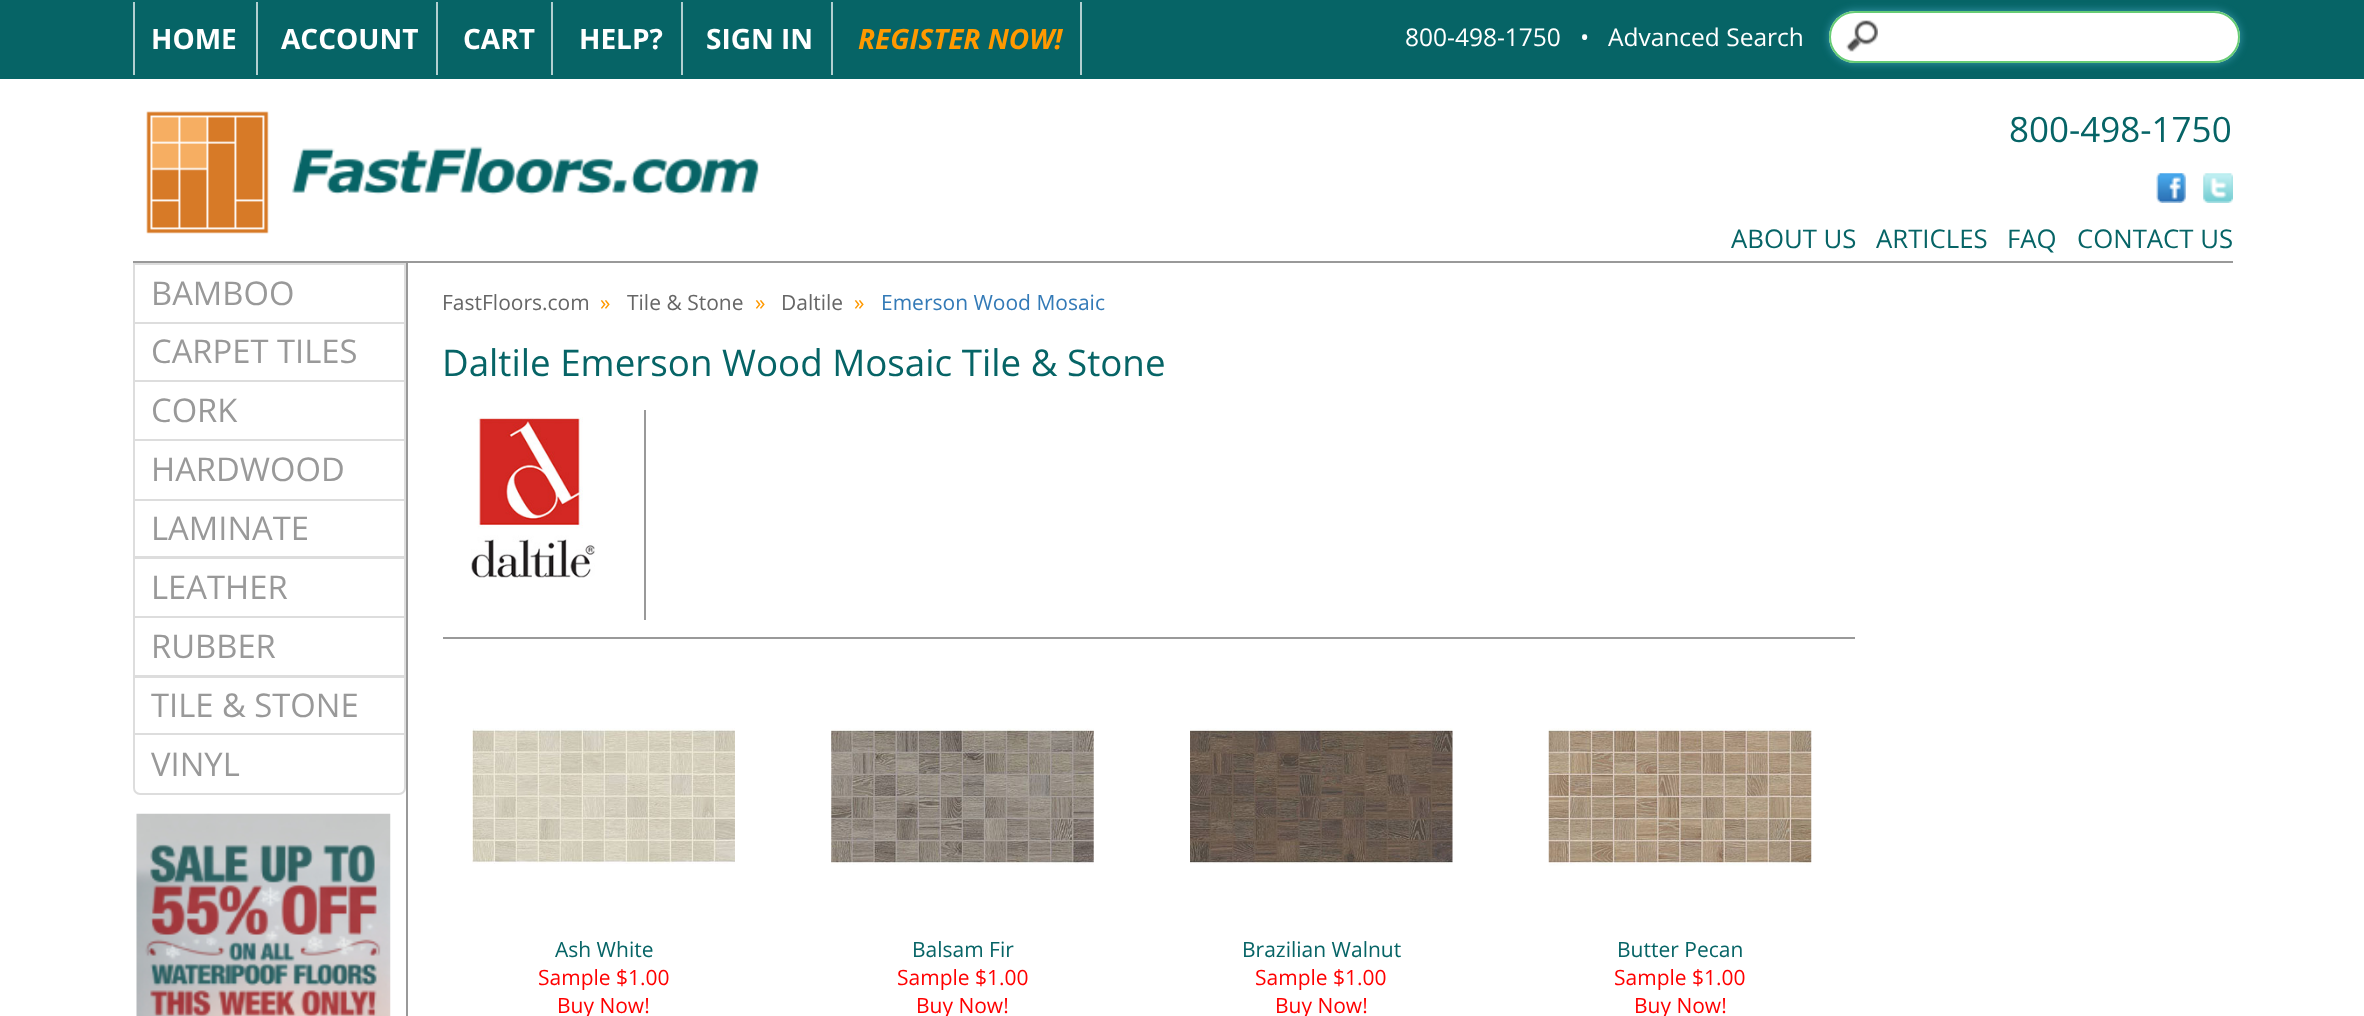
async function draw(canvas) {
  canvas.width = 2364
  canvas.height = 1016
  const ctx = canvas.getContext('2d')
  ctx.miterLimit = 4
  ctx.fontKerning = 'normal'
  async function loadImage(src) {
    const img = new Image()
    img.src = src
    await img.decode()
    return img
  }

  ctx.fillStyle = '#fff'
  ctx.fillRect(0, 0, 2364, 1016)
  ctx.fillStyle = '#066466'
  ctx.fillRect(0, 0, 2364, 79)
  ctx.font = 'bold 28px Open Sans'
  ctx.fillStyle = '#fff'
  ctx.fillText('HOME', 151, 49)
  ctx.fillStyle = '#b2cfd0'
  ctx.fillRect(256, 2, 2, 73)
  ctx.fillRect(133, 2, 2, 73)
  ctx.fillStyle = '#fff'
  ctx.fillText('ACCOUNT', 281, 49)
  ctx.fillStyle = '#b2cfd0'
  ctx.fillRect(436, 2, 2, 73)
  ctx.fillStyle = '#fff'
  ctx.fillText('CART', 463, 49)
  ctx.fillStyle = '#b2cfd0'
  ctx.fillRect(551, 2, 2, 73)
  ctx.fillStyle = '#fff'
  ctx.fillText('HELP?', 579, 49)
  ctx.fillStyle = '#b2cfd0'
  ctx.fillRect(681, 2, 2, 73)
  ctx.fillStyle = '#fff'
  ctx.fillText('SIGN IN', 706, 49)
  ctx.fillStyle = '#b2cfd0'
  ctx.fillRect(831, 2, 2, 73)
  ctx.font = 'italic bold 28px Open Sans'
  ctx.fillStyle = '#f90'
  ctx.fillText('REGISTER NOW!', 858, 49)
  ctx.fillStyle = '#b2cfd0'
  ctx.fillRect(1080, 2, 2, 73)
  ctx.font = '24.5px Open Sans'
  ctx.fillStyle = '#fff'
  ctx.fillText('800-498-1750   •', 1405, 46)
  ctx.fillText('Advanced Search', 1608, 46)
  ctx.fillStyle = '#6dcff680'
  ctx.filter = 'blur(4.5px)'
  ctx.beginPath()
  ctx.roundRect(1829, 11, 411, 52, 26)
  ctx.fill()
  ctx.filter = 'none'
  ctx.fillStyle = '#fff'
  ctx.beginPath()
  ctx.roundRect(1829, 11, 411, 52, 26)
  ctx.fill()
  ctx.drawImage(await loadImage('image0.png'), 1846, 20, 32, 32)
  ctx.beginPath()
  ctx.roundRect(1830, 12, 409, 50, 25)
  ctx.strokeStyle = '#66cc75'
  ctx.lineWidth = 2
  ctx.stroke()
  ctx.fillStyle = '#999'
  ctx.fillRect(133, 261, 2100, 2)
  ctx.drawImage(await loadImage('image1.png'), 146, 111, 613, 123)
  ctx.font = '35px Open Sans'
  ctx.fillStyle = '#066466'
  ctx.fillText('800-498-1750', 2009, 142)
  ctx.drawImage(await loadImage('image2.png'), 2156, 173, 30, 30)
  ctx.drawImage(await loadImage('image3.png'), 2203, 173, 30, 30)
  ctx.font = '25.75px Open Sans'
  ctx.fillText('ABOUT US', 1731, 248)
  ctx.fillText('ARTICLES', 1876, 248)
  ctx.fillText('FAQ', 2007, 248)
  ctx.fillText('CONTACT US', 2077, 248)
  ctx.strokeStyle = '#ddd'
  ctx.strokeRect(134, 264, 271, 59)
  ctx.font = '32.75px Open Sans'
  ctx.fillStyle = '#999'
  ctx.fillText('BAMBOO', 151, 305)
  ctx.strokeRect(134, 323, 271, 58)
  ctx.fillText('CARPET TILES', 151, 363)
  ctx.strokeRect(134, 381, 271, 59)
  ctx.fillText('CORK', 151, 422)
  ctx.strokeRect(134, 440, 271, 60)
  ctx.fillText('HARDWOOD', 151, 481)
  ctx.strokeRect(134, 500, 271, 57)
  ctx.fillText('LAMINATE', 151, 540)
  ctx.strokeRect(134, 558, 271, 59)
  ctx.fillText('LEATHER', 151, 599)
  ctx.strokeRect(134, 617, 271, 59)
  ctx.fillText('RUBBER', 151, 658)
  ctx.strokeRect(134, 677, 271, 57)
  ctx.fillText('TILE & STONE', 151, 717)
  ctx.fillStyle = '#fff'
  ctx.beginPath()
  ctx.roundRect(134, 734, 271, 60, [0, 0, 6, 6])
  ctx.fill()
  ctx.stroke()
  ctx.fillStyle = '#999'
  ctx.fillText('VINYL', 151, 776)
  ctx.drawImage(await loadImage('image4.png'), 136, 813, 255, 203)
  ctx.fillRect(406, 263, 2, 753)
  ctx.font = '21px Open Sans'
  ctx.fillStyle = '#666'
  ctx.fillText('FastFloors.com', 442, 310)
  ctx.fillStyle = '#f90'
  ctx.fillText('»', 600, 310)
  ctx.fillStyle = '#666'
  ctx.fillText('Tile & Stone', 627, 310)
  ctx.fillStyle = '#f90'
  ctx.fillText('»', 755, 310)
  ctx.fillStyle = '#666'
  ctx.fillText('Daltile', 781, 310)
  ctx.fillStyle = '#f90'
  ctx.fillText('»', 854, 310)
  ctx.fillStyle = '#337ab7'
  ctx.fillText('Emerson Wood Mosaic', 881, 310)
  ctx.font = '36.75px Open Sans'
  ctx.fillStyle = '#066466'
  ctx.fillText('Daltile Emerson Wood Mosaic Tile & Stone', 442, 376)
  ctx.drawImage(await loadImage('image5.png'), 471, 417, 124, 161)
  ctx.fillStyle = '#999'
  ctx.fillRect(644, 410, 2, 210)
  ctx.fillRect(443, 637, 1412, 2)
  ctx.drawImage(await loadImage('image6.png'), 472, 728, 263, 136)
  ctx.font = '21px Open Sans'
  ctx.fillStyle = '#066466'
  ctx.fillText('Ash White', 555, 957)
  ctx.fillStyle = '#f00'
  ctx.fillText('Sample $1.00', 538, 985)
  ctx.fillText('Buy Now!', 557, 1013)
  ctx.drawImage(await loadImage('image7.png'), 831, 728, 263, 137)
  ctx.fillStyle = '#066466'
  ctx.fillText('Balsam Fir', 912, 957)
  ctx.fillStyle = '#f00'
  ctx.fillText('Sample $1.00', 897, 985)
  ctx.fillText('Buy Now!', 916, 1013)
  ctx.drawImage(await loadImage('image8.png'), 1190, 728, 263, 136)
  ctx.fillStyle = '#066466'
  ctx.fillText('Brazilian Walnut', 1242, 957)
  ctx.fillStyle = '#f00'
  ctx.fillText('Sample $1.00', 1255, 985)
  ctx.fillText('Buy Now!', 1275, 1013)
  ctx.drawImage(await loadImage('image9.png'), 1548, 728, 264, 138)
  ctx.fillStyle = '#066466'
  ctx.fillText('Butter Pecan', 1617, 957)
  ctx.fillStyle = '#f00'
  ctx.fillText('Sample $1.00', 1614, 985)
  ctx.fillText('Buy Now!', 1634, 1013)
}

draw(document.querySelector('canvas'))
